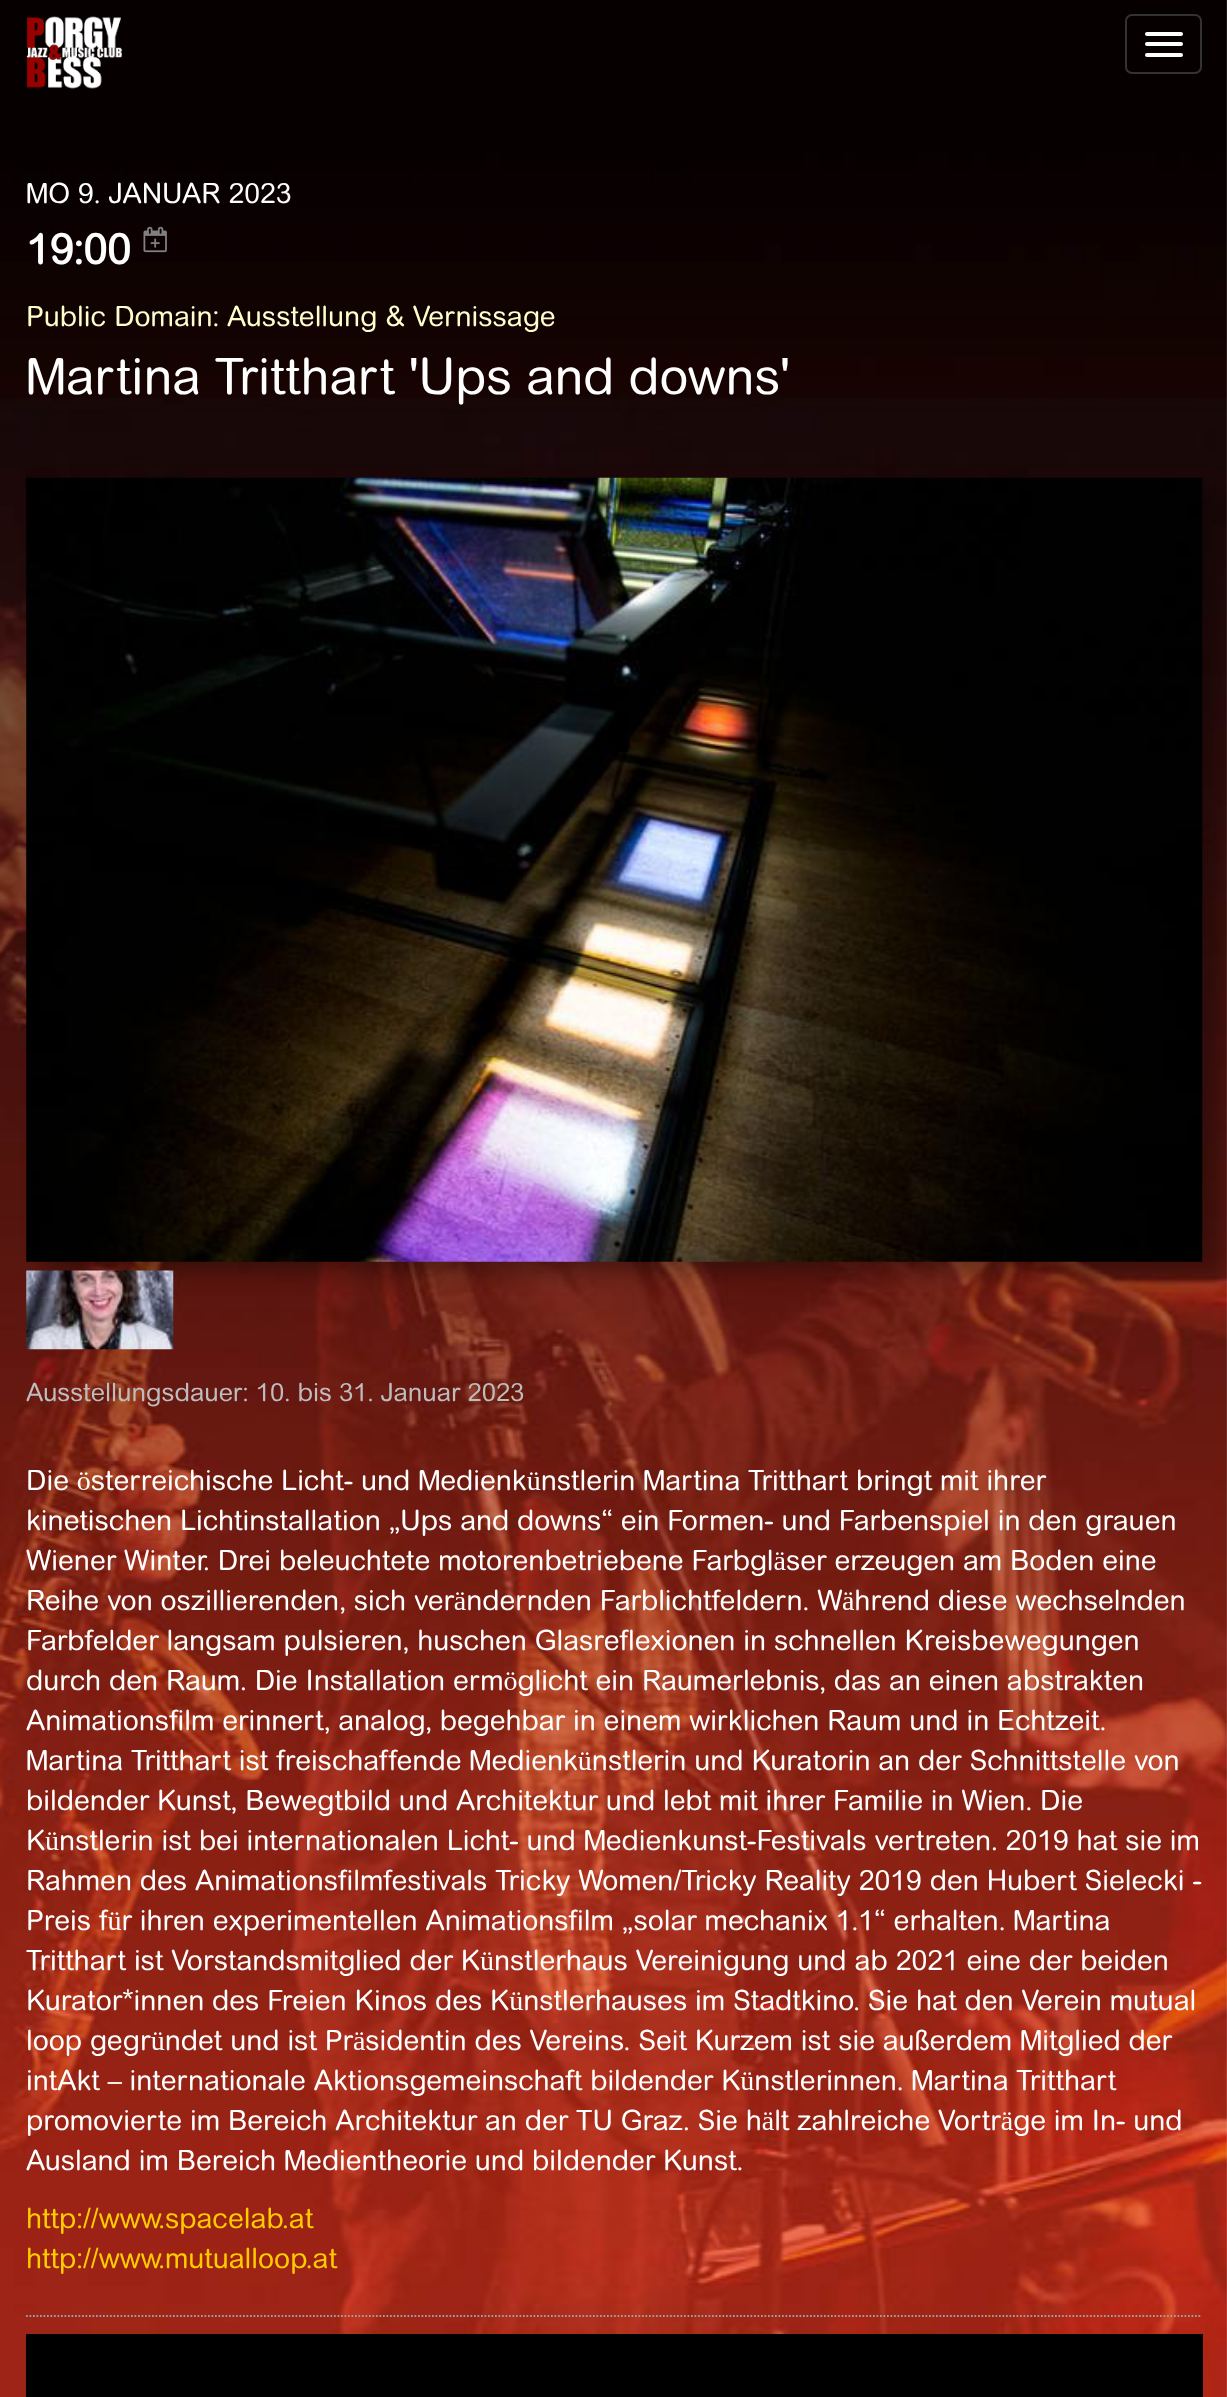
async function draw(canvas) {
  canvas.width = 1227
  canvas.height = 2397
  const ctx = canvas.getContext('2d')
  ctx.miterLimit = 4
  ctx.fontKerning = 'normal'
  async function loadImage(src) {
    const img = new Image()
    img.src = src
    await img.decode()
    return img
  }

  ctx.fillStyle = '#fff'
  ctx.fillRect(0, 0, 1227, 2397)
  ctx.drawImage(await loadImage('image0.png'), 0, 0, 1227, 2397)
  ctx.drawImage(await loadImage('image1.png'), 26, 16, 97, 73)
  ctx.beginPath()
  ctx.roundRect(1126, 15, 75, 58, 6)
  ctx.strokeStyle = '#333'
  ctx.lineWidth = 2
  ctx.stroke()
  ctx.beginPath()
  ctx.roundRect(1145, 32, 38, 4, 2)
  ctx.fill()
  ctx.beginPath()
  ctx.roundRect(1145, 42, 38, 4, 2)
  ctx.fill()
  ctx.beginPath()
  ctx.roundRect(1145, 53, 38, 4, 2)
  ctx.fill()
  ctx.font = '28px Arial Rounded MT'
  ctx.fillText('MO 9. JANUAR 2023', 26, 203)
  ctx.font = 'bold 42px Arial Rounded MT'
  ctx.fillText('19:00', 26, 264)
  ctx.drawImage(await loadImage('image2.png'), 143, 226, 24, 27)
  ctx.font = '28px Arial Rounded MT'
  ctx.fillStyle = '#ffc'
  ctx.fillText('Public Domain: Ausstellung & Vernissage', 26, 326)
  ctx.font = '50.4px Arial Rounded MT'
  ctx.fillStyle = '#fff'
  ctx.fillText('Martina Tritthart \'Ups and downs\'', 26, 394)
  ctx.fillStyle = '#00000059'
  ctx.filter = 'blur(10.5px)'
  ctx.beginPath()
  ctx.rect(44, 488, 1176, 784)
  ctx.fill()
  ctx.filter = 'none'
  ctx.drawImage(await loadImage('image3.png'), 26, 477, 1177, 785)
  ctx.drawImage(await loadImage('image4.png'), 26, 1270, 148, 80)
  ctx.font = '25.25px Arial Rounded MT'
  ctx.fillStyle = '#bdbdbd'
  ctx.fillText('Ausstellungsdauer: 10. bis 31. Januar 2023', 26, 1401)
  ctx.font = '28px Arial Rounded MT'
  ctx.fillStyle = '#fff'
  ctx.fillText('Die österreichische Licht- und Medienkünstlerin Martina Tritthart bringt mit ihrer', 26, 1490)
  ctx.fillText('kinetischen Lichtinstallation „Ups and downs“ ein Formen- und Farbenspiel in den grauen', 26, 1530)
  ctx.fillText('Wiener Winter. Drei beleuchtete motorenbetriebene Farbgläser erzeugen am Boden eine', 26, 1570)
  ctx.fillText('Reihe von oszillierenden, sich verändernden Farblichtfeldern. Während diese wechselnden', 26, 1610)
  ctx.fillText('Farbfelder langsam pulsieren, huschen Glasreflexionen in schnellen Kreisbewegungen', 26, 1650)
  ctx.fillText('durch den Raum. Die Installation ermöglicht ein Raumerlebnis, das an einen abstrakten', 26, 1690)
  ctx.fillText('Animationsfilm erinnert, analog, begehbar in einem wirklichen Raum und in Echtzeit.', 26, 1730)
  ctx.fillText('Martina Tritthart ist freischaffende Medienkünstlerin und Kuratorin an der Schnittstelle von', 26, 1770)
  ctx.fillText('bildender Kunst, Bewegtbild und Architektur und lebt mit ihrer Familie in Wien. Die', 26, 1810)
  ctx.fillText('Künstlerin ist bei internationalen Licht- und Medienkunst-Festivals vertreten. 2019 hat sie im', 26, 1850)
  ctx.fillText('Rahmen des Animationsfilmfestivals Tricky Women/Tricky Reality 2019 den Hubert Sielecki -', 26, 1890)
  ctx.fillText('Preis für ihren experimentellen Animationsfilm „solar mechanix 1.1“ erhalten. Martina', 26, 1930)
  ctx.fillText('Tritthart ist Vorstandsmitglied der Künstlerhaus Vereinigung und ab 2021 eine der beiden', 26, 1970)
  ctx.fillText('Kurator*innen des Freien Kinos des Künstlerhauses im Stadtkino. Sie hat den Verein mutual', 26, 2010)
  ctx.fillText('loop gegründet und ist Präsidentin des Vereins. Seit Kurzem ist sie außerdem Mitglied der', 26, 2050)
  ctx.fillText('intAkt – internationale Aktionsgemeinschaft bildender Künstlerinnen. Martina Tritthart', 26, 2090)
  ctx.fillText('promovierte im Bereich Architektur an der TU Graz. Sie hält zahlreiche Vorträge im In- und', 26, 2130)
  ctx.fillText('Ausland im Bereich Medientheorie und bildender Kunst.', 26, 2170)
  ctx.fillStyle = '#fc0'
  ctx.fillText('http://www.spacelab.at', 26, 2228)
  ctx.fillText('http://www.mutualloop.at', 26, 2268)
  ctx.beginPath()
  ctx.moveTo(26, 2316)
  ctx.lineTo(1202, 2316)
  ctx.strokeStyle = '#9d9d9d'
  ctx.lineWidth = 1.8
  ctx.setLineDash([1.75, 1.75])
  ctx.stroke()
  ctx.fillStyle = '#000'
  ctx.fillRect(26, 2334, 1177, 63)
}

draw(document.querySelector('canvas'))
